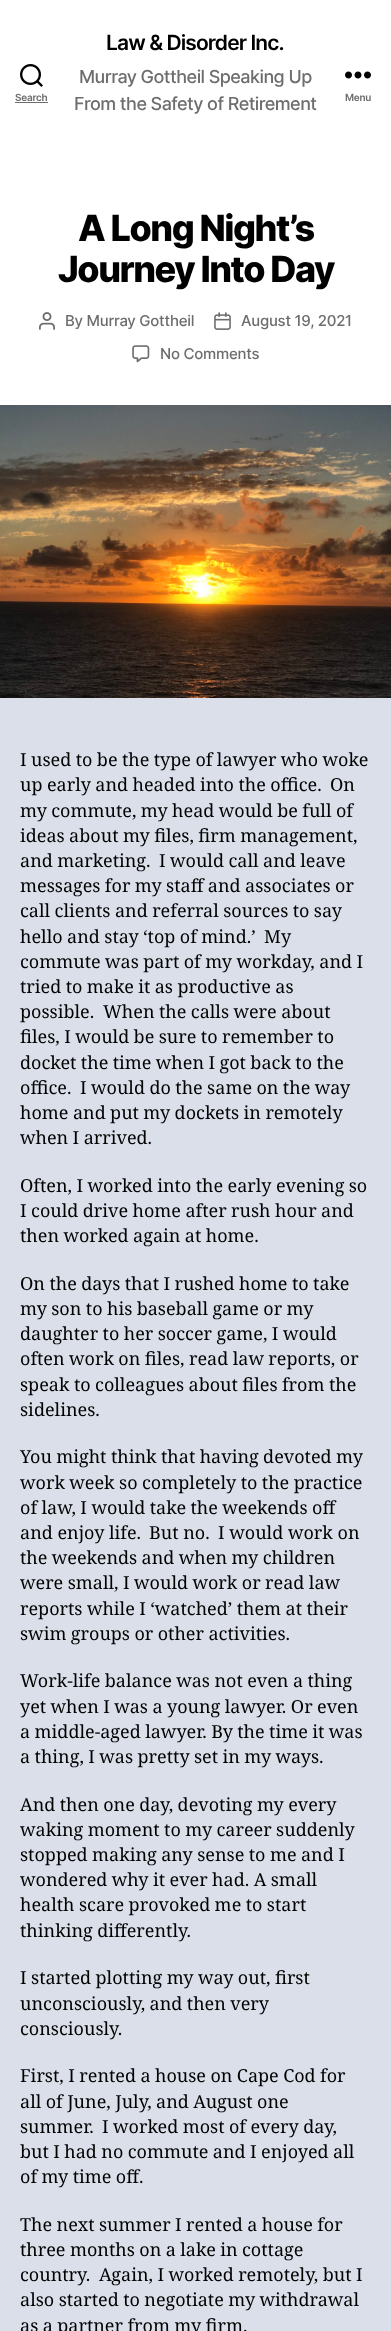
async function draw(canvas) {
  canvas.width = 391
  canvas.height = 2331
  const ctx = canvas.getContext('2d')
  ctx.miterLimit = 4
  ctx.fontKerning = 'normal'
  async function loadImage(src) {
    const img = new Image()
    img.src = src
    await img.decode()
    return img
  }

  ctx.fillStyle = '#dadfea'
  ctx.fillRect(0, 0, 391, 2331)
  ctx.fillStyle = '#fff'
  ctx.fillRect(0, 0, 391, 405)
  ctx.drawImage(await loadImage('image0.png'), 20, 64, 23, 23)
  ctx.letterSpacing = '-0.25px'
  ctx.font = '600 10px Inter'
  ctx.fillStyle = '#6d6d6d'
  ctx.fillText('Search', 15, 101)
  ctx.fillRect(15, 102, 33, 1)
  ctx.letterSpacing = '-0.9px'
  ctx.font = '600 21px Inter'
  ctx.fillStyle = '#000'
  ctx.fillText('Law & Disorder Inc.', 106, 50)
  ctx.letterSpacing = '-0.55px'
  ctx.font = '500 18px Inter'
  ctx.fillStyle = '#6d6d6d'
  ctx.fillText('Murray Gottheil Speaking Up', 79, 83)
  ctx.fillText('From the Safety of Retirement', 74, 110)
  ctx.drawImage(await loadImage('image1.png'), 345, 71, 26, 8)
  ctx.letterSpacing = '-0.25px'
  ctx.font = '600 10px Inter'
  ctx.fillText('Menu', 345, 101)
  ctx.letterSpacing = '-1.5px'
  ctx.font = '800 36px Inter'
  ctx.fillStyle = '#000'
  ctx.fillText('A Long Night’s', 78, 241)
  ctx.fillText('Journey Into Day', 58, 282)
  ctx.drawImage(await loadImage('image2.png'), 39, 312, 16, 18)
  ctx.letterSpacing = '-0.25px'
  ctx.font = '500 15px Inter'
  ctx.fillStyle = '#6d6d6d'
  ctx.fillText('By Murray Gottheil', 65, 326)
  ctx.drawImage(await loadImage('image3.png'), 214, 312, 17, 18)
  ctx.fillText('August 19, 2021', 241, 326)
  ctx.drawImage(await loadImage('image4.png'), 132, 345, 18, 18)
  ctx.fillText('No Comments', 160, 359)
  ctx.drawImage(await loadImage('image5.png'), 0, 405, 391, 293)
  ctx.letterSpacing = '0px'
  ctx.wordSpacing = '-0.25px'
  ctx.font = '18px Noto Serif'
  ctx.fillStyle = '#000'
  ctx.fillText('I used to be the type of lawyer who woke', 20, 766)
  ctx.fillText('up early and headed into the office.', 20, 791)
  ctx.wordSpacing = '0px'
  ctx.fillText('On', 330, 791)
  ctx.wordSpacing = '-0.25px'
  ctx.fillText('my commute, my head would be full of', 20, 817)
  ctx.fillText('ideas about my files, firm management,', 20, 842)
  ctx.fillText('and marketing.', 20, 867)
  ctx.fillText('I would call and leave', 159, 867)
  ctx.fillText('messages for my staff and associates or', 20, 892)
  ctx.fillText('call clients and referral sources to say', 20, 917)
  ctx.fillText('hello and stay ‘top of mind.’', 20, 943)
  ctx.wordSpacing = '0px'
  ctx.fillText('My', 264, 943)
  ctx.wordSpacing = '-0.25px'
  ctx.fillText('commute was part of my workday, and I', 20, 968)
  ctx.fillText('tried to make it as productive as', 20, 993)
  ctx.wordSpacing = '0px'
  ctx.fillText('possible.', 20, 1018)
  ctx.wordSpacing = '-0.25px'
  ctx.fillText('When the calls were about', 103, 1018)
  ctx.fillText('files, I would be sure to remember to', 20, 1043)
  ctx.fillText('docket the time when I got back to the', 20, 1069)
  ctx.wordSpacing = '0px'
  ctx.fillText('office.', 20, 1094)
  ctx.wordSpacing = '-0.25px'
  ctx.fillText('I would do the same on the way', 80, 1094)
  ctx.fillText('home and put my dockets in remotely', 20, 1119)
  ctx.fillText('when I arrived.', 20, 1144)
  ctx.fillText('Often, I worked into the early evening so', 20, 1192)
  ctx.fillText('I could drive home after rush hour and', 20, 1217)
  ctx.fillText('then worked again at home.', 20, 1242)
  ctx.fillText('On the days that I rushed home to take', 20, 1290)
  ctx.fillText('my son to his baseball game or my', 20, 1315)
  ctx.fillText('daughter to her soccer game, I would', 20, 1340)
  ctx.fillText('often work on files, read law reports, or', 20, 1365)
  ctx.fillText('speak to colleagues about files from the', 20, 1391)
  ctx.wordSpacing = '0px'
  ctx.fillText('sidelines.', 20, 1416)
  ctx.wordSpacing = '-0.25px'
  ctx.fillText('You might think that having devoted my', 20, 1463)
  ctx.fillText('work week so completely to the practice', 20, 1489)
  ctx.fillText('of law, I would take the weekends off', 20, 1514)
  ctx.wordSpacing = '0px'
  ctx.fillText('and enjoy life.', 20, 1539)
  ctx.fillText('But no.', 149, 1539)
  ctx.fillText('I would work on', 218, 1539)
  ctx.wordSpacing = '-0.25px'
  ctx.fillText('the weekends and when my children', 20, 1564)
  ctx.fillText('were small, I would work or read law', 20, 1589)
  ctx.fillText('reports while I ‘watched’ them at their', 20, 1615)
  ctx.fillText('swim groups or other activities.', 20, 1640)
  ctx.fillText('Work-life balance was not even a thing', 20, 1687)
  ctx.fillText('yet when I was a young lawyer. Or even', 20, 1713)
  ctx.fillText('a middle-aged lawyer. By the time it was', 20, 1738)
  ctx.fillText('a thing, I was pretty set in my ways.', 20, 1763)
  ctx.fillText('And then one day, devoting my every', 20, 1811)
  ctx.fillText('waking moment to my career suddenly', 20, 1836)
  ctx.fillText('stopped making any sense to me and I', 20, 1861)
  ctx.fillText('wondered why it ever had. A small', 20, 1886)
  ctx.fillText('health scare provoked me to start', 20, 1911)
  ctx.fillText('thinking differently.', 20, 1937)
  ctx.fillText('I started plotting my way out, first', 20, 1984)
  ctx.fillText('unconsciously, and then very', 20, 2010)
  ctx.wordSpacing = '0px'
  ctx.fillText('consciously.', 20, 2035)
  ctx.wordSpacing = '-0.25px'
  ctx.fillText('First, I rented a house on Cape Cod for', 20, 2082)
  ctx.fillText('all of June, July, and August one', 20, 2108)
  ctx.wordSpacing = '0px'
  ctx.fillText('summer.', 20, 2133)
  ctx.wordSpacing = '-0.25px'
  ctx.fillText('I worked most of every day,', 102, 2133)
  ctx.fillText('but I had no commute and I enjoyed all', 20, 2158)
  ctx.fillText('of my time off.', 20, 2183)
  ctx.fillText('The next summer I rented a house for', 20, 2231)
  ctx.fillText('three months on a lake in cottage', 20, 2256)
  ctx.wordSpacing = '0px'
  ctx.fillText('country.', 20, 2281)
  ctx.wordSpacing = '-0.25px'
  ctx.fillText('Again, I worked remotely, but I', 99, 2281)
  ctx.fillText('also started to negotiate my withdrawal', 20, 2306)
  ctx.fillText('as a partner from my firm.', 20, 2332)
}

draw(document.querySelector('canvas'))
